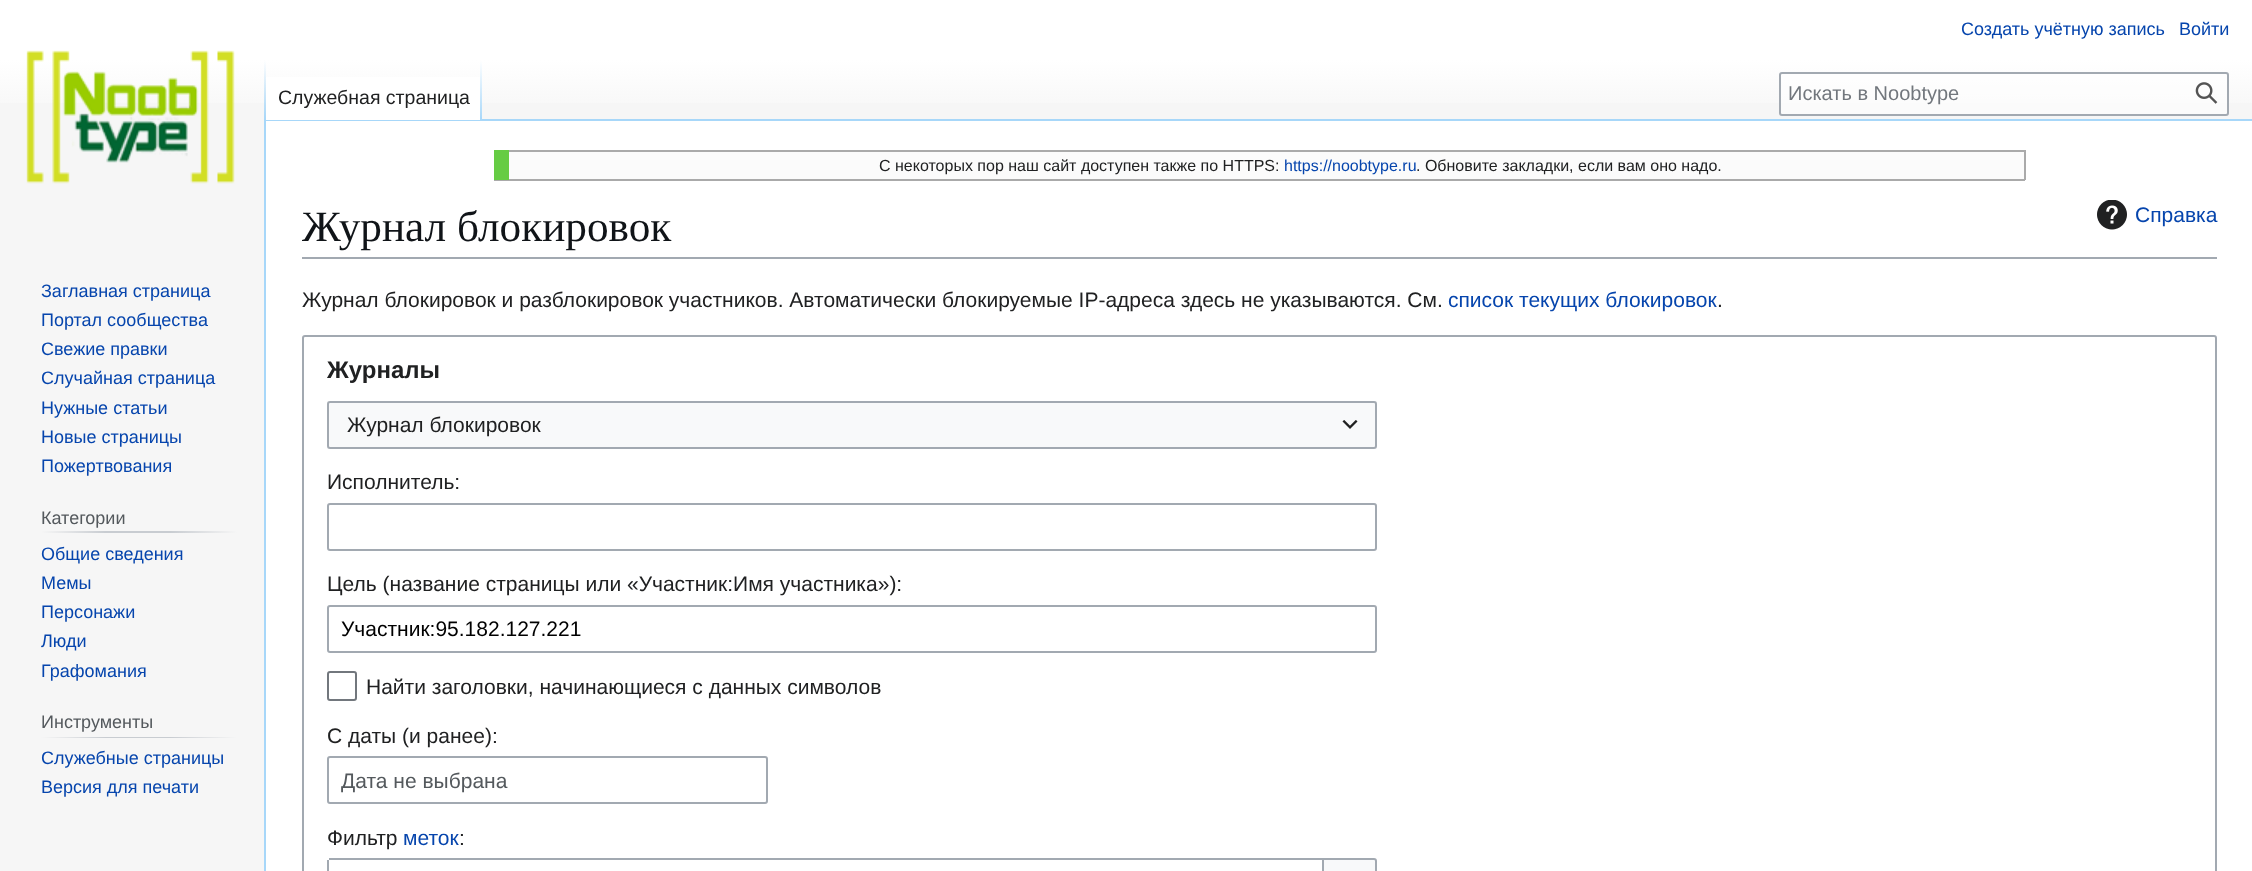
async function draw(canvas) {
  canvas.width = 2252
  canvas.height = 871
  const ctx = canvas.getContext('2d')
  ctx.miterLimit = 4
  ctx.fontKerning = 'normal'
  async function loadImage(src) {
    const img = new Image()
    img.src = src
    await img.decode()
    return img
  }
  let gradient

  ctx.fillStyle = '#f6f6f6'
  ctx.fillRect(0, 0, 2252, 871)
  gradient = ctx.createLinearGradient(1127, 0, 1127, 120)
  gradient.addColorStop(0.5, '#fff')
  gradient.addColorStop(1, '#f6f6f6')
  ctx.fillStyle = gradient
  ctx.fillRect(0, 0, 2252, 103)
  ctx.font = '18px Liberation Sans'
  ctx.fillStyle = '#0645ad'
  ctx.fillText('Создать учётную запись', 1961, 35)
  ctx.fillText('Войти', 2179, 35)
  ctx.fillStyle = '#a7d7f9'
  ctx.fillRect(264, 119, 1988, 2)
  ctx.fillRect(264, 119, 2, 752)
  gradient = ctx.createLinearGradient(265, 60, 265, 120)
  gradient.addColorStop(0, '#a7d7f900')
  gradient.addColorStop(1, '#a7d7f9')
  ctx.fillStyle = gradient
  ctx.fillRect(264, 60, 2, 60)
  ctx.fillStyle = '#fff'
  ctx.fillRect(266, 77, 214, 43)
  gradient = ctx.createLinearGradient(481, 60, 481, 120)
  gradient.addColorStop(0, '#fff')
  gradient.addColorStop(1, '#a7d7f9')
  ctx.fillStyle = gradient
  ctx.fillRect(480, 60, 2, 60)
  ctx.font = '19.5px Liberation Sans'
  ctx.fillStyle = '#202122'
  ctx.fillText('Служебная страница', 278, 104)
  ctx.fillStyle = '#ffffff80'
  ctx.beginPath()
  ctx.roundRect(1780, 73, 448, 42, 2)
  ctx.fill()
  ctx.strokeStyle = '#a2a9b1'
  ctx.lineWidth = 2
  ctx.stroke()
  ctx.font = '20px Liberation Sans'
  ctx.fillStyle = '#72777d'
  ctx.fillText('Искать в Noobtype', 1788, 100)
  ctx.drawImage(await loadImage('image0.png'), 2195, 82, 23, 22)
  ctx.drawImage(await loadImage('image1.png'), 26, 50, 209, 134)
  ctx.font = '18px Liberation Sans'
  ctx.fillStyle = '#0645ad'
  ctx.fillText('Заглавная страница', 41, 297)
  ctx.fillText('Портал сообщества', 41, 326)
  ctx.fillText('Свежие правки', 41, 355)
  ctx.fillText('Случайная страница', 41, 384)
  ctx.fillText('Нужные статьи', 41, 414)
  ctx.fillText('Новые страницы', 41, 443)
  ctx.fillText('Пожертвования', 41, 472)
  gradient = ctx.createLinearGradient(41, 532, 237, 532)
  gradient.addColorStop(0, '#f6f6f6')
  gradient.addColorStop(0.33, '#c8ccd1')
  gradient.addColorStop(0.66, '#c8ccd1')
  gradient.addColorStop(1, '#f6f6f6')
  ctx.fillStyle = gradient
  ctx.fillRect(41, 531, 196, 2)
  ctx.fillStyle = '#54595d'
  ctx.fillText('Категории', 41, 524)
  ctx.fillStyle = '#0645ad'
  ctx.fillText('Общие сведения', 41, 560)
  ctx.fillText('Мемы', 41, 589)
  ctx.fillText('Персонажи', 41, 618)
  ctx.fillText('Люди', 41, 647)
  ctx.fillText('Графомания', 41, 677)
  gradient = ctx.createLinearGradient(41, 737, 237, 737)
  gradient.addColorStop(0, '#f6f6f6')
  gradient.addColorStop(0.33, '#c8ccd1')
  gradient.addColorStop(0.66, '#c8ccd1')
  gradient.addColorStop(1, '#f6f6f6')
  ctx.fillStyle = gradient
  ctx.fillRect(41, 737, 196, 1)
  ctx.fillStyle = '#54595d'
  ctx.fillText('Инструменты', 41, 728)
  ctx.fillStyle = '#0645ad'
  ctx.fillText('Служебные страницы', 41, 764)
  ctx.fillText('Версия для печати', 41, 793)
  ctx.fillStyle = '#fff'
  ctx.fillRect(266, 121, 1986, 750)
  ctx.fillStyle = '#fbfbfb'
  ctx.fillRect(509, 152, 1515, 27)
  ctx.fillStyle = '#aaa'
  ctx.fillRect(509, 150, 1516, 2)
  ctx.fillRect(2024, 150, 2, 30)
  ctx.fillRect(494, 179, 1531, 2)
  ctx.fillStyle = '#6c4'
  ctx.fillRect(494, 150, 15, 30)
  ctx.font = '16px Liberation Sans'
  ctx.fillStyle = '#202122'
  ctx.fillText('C некоторых пор наш сайт доступен также по HTTPS:', 879, 171)
  ctx.fillStyle = '#0645ad'
  ctx.fillText('https://noobtype.ru', 1284, 171)
  ctx.fillStyle = '#202122'
  ctx.fillText('. Обновите закладки, если вам оно надо.', 1416, 171)
  ctx.fillStyle = '#a2a9b1'
  ctx.fillRect(302, 257, 1915, 2)
  ctx.font = '43.25px Liberation Serif'
  ctx.fillStyle = '#101418'
  ctx.fillText('Журнал блокировок', 302, 241)
  ctx.drawImage(await loadImage('image2.png'), 2097, 200, 30, 30)
  ctx.font = '21px Liberation Sans'
  ctx.fillStyle = '#0645ad'
  ctx.fillText('Справка', 2135, 222)
  ctx.fillStyle = '#202122'
  ctx.fillText('Журнал блокировок и разблокировок участников. Автоматически блокируемые IP-адреса здесь не указываются. См.', 302, 307)
  ctx.fillStyle = '#0645ad'
  ctx.fillText('список текущих блокировок', 1448, 307)
  ctx.fillStyle = '#202122'
  ctx.fillText('.', 1717, 307)
  ctx.beginPath()
  ctx.roundRect(303, 336, 1913, 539, 2)
  ctx.stroke()
  ctx.font = 'bold 24px Liberation Sans'
  ctx.fillText('Журналы', 327, 378)
  ctx.fillStyle = '#f8f9fa'
  ctx.fillRect(327, 401, 1050, 48)
  ctx.beginPath()
  ctx.roundRect(328, 402, 1048, 46, 2)
  ctx.stroke()
  ctx.font = '21px Liberation Sans'
  ctx.fillStyle = '#202122'
  ctx.fillText('Журнал блокировок', 347, 432)
  ctx.drawImage(await loadImage('image3.png'), 1342, 420, 16, 9)
  ctx.fillText('Исполнитель:', 327, 489)
  ctx.beginPath()
  ctx.roundRect(328, 504, 1048, 46, 2)
  ctx.stroke()
  ctx.fillText('Цель (название страницы или «Участник:Имя участника»):', 327, 591)
  ctx.beginPath()
  ctx.roundRect(328, 606, 1048, 46, 2)
  ctx.stroke()
  ctx.fillStyle = '#000'
  ctx.fillText('Участник:95.182.127.221', 341, 636)
  ctx.beginPath()
  ctx.roundRect(328, 672, 28, 28, 2)
  ctx.strokeStyle = '#72777d'
  ctx.stroke()
  ctx.fillStyle = '#202122'
  ctx.fillText('Найти заголовки, начинающиеся с данных символов', 366, 694)
  ctx.fillText('С даты (и ранее):', 327, 743)
  ctx.beginPath()
  ctx.roundRect(328, 757, 439, 46, 2)
  ctx.strokeStyle = '#a2a9b1'
  ctx.stroke()
  ctx.fillStyle = '#54595d'
  ctx.fillText('Дата не выбрана', 341, 788)
  ctx.fillStyle = '#202122'
  ctx.fillText('Фильтр', 327, 845)
  ctx.fillStyle = '#0645ad'
  ctx.fillText('меток', 403, 845)
  ctx.fillStyle = '#202122'
  ctx.fillText(':', 459, 845)
  ctx.fillStyle = '#a2a9b1'
  ctx.fillRect(329, 858, 993, 2)
  ctx.fillRect(327, 860, 2, 11)
  ctx.fillStyle = '#f8f9fa'
  ctx.beginPath()
  ctx.moveTo(1323, 859)
  ctx.lineTo(1374, 859)
  ctx.bezierCurveTo(1375, 859, 1376, 860, 1376, 861)
  ctx.lineTo(1376, 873)
  ctx.bezierCurveTo(1376, 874, 1375, 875, 1374, 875)
  ctx.lineTo(1323, 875)
  ctx.closePath()
  ctx.fill()
  ctx.stroke()
}

draw(document.querySelector('canvas'))
